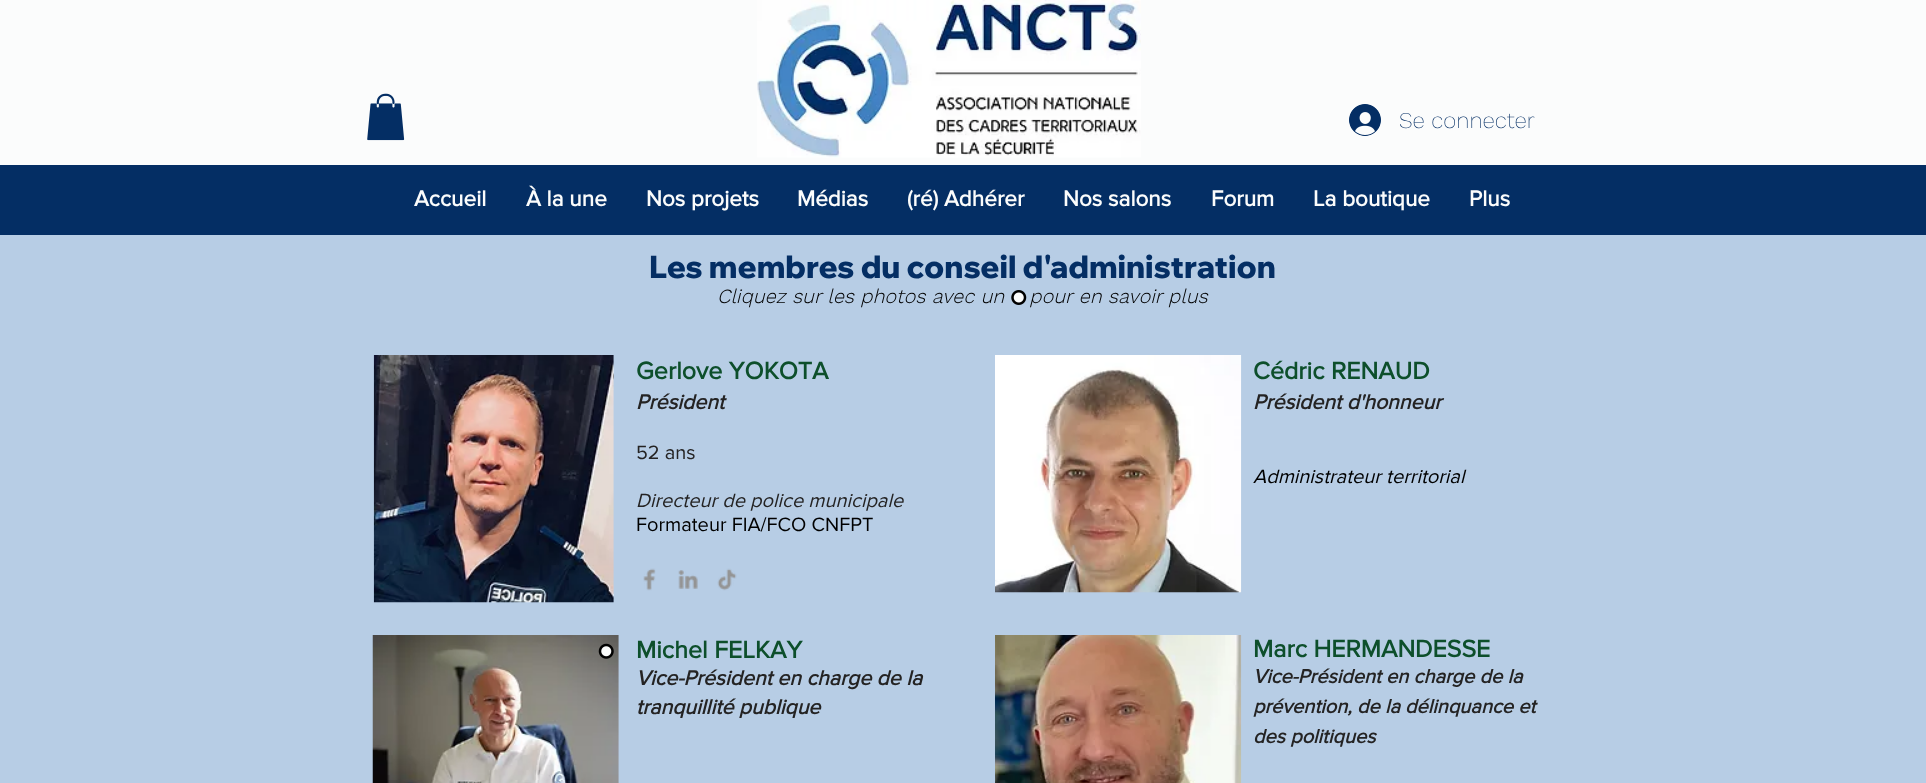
async function draw(canvas) {
  canvas.width = 1926
  canvas.height = 783
  const ctx = canvas.getContext('2d')
  ctx.miterLimit = 4
  ctx.fontKerning = 'normal'
  async function loadImage(src) {
    const img = new Image()
    img.src = src
    await img.decode()
    return img
  }

  ctx.fillStyle = '#b7cde5'
  ctx.fillRect(0, 0, 1926, 783)
  ctx.fillStyle = '#fbfcfc'
  ctx.fillRect(0, 0, 1926, 165)
  ctx.drawImage(await loadImage('image0.png'), 367, 93, 38, 48)
  ctx.drawImage(await loadImage('image1.png'), 757, 0, 384, 158)
  ctx.drawImage(await loadImage('image2.png'), 1349, 104, 32, 32)
  ctx.font = '200 22.5px Work Sans'
  ctx.fillStyle = '#042e64'
  ctx.fillText('Se connecter', 1399, 128)
  ctx.fillRect(0, 165, 1926, 70)
  ctx.font = 'bold 22.5px "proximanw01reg"'
  ctx.fillStyle = '#fbfcfc'
  ctx.fillText('Accueil', 414, 206)
  ctx.fillText('À la une', 526, 206)
  ctx.fillText('Nos projets', 646, 206)
  ctx.fillText('Médias', 797, 206)
  ctx.fillText('(ré) Adhérer', 907, 206)
  ctx.fillText('Nos salons', 1063, 206)
  ctx.fillText('Forum', 1211, 206)
  ctx.fillText('La boutique', 1313, 206)
  ctx.fillText('Plus', 1469, 206)
  ctx.font = '800 31.25px Wix Madefor Display'
  ctx.fillStyle = '#042e64'
  ctx.fillText('Les membres du conseil d\'administration', 649, 278)
  ctx.font = 'italic 300 20px Work Sans'
  ctx.fillStyle = '#000'
  ctx.fillText('Cliquez sur les photos avec un    pour en savoir plus', 717, 303)
  ctx.drawImage(await loadImage('image3.png'), 1011, 290, 16, 15)
  ctx.drawImage(await loadImage('image6.png'), 613, 373, 1, 7)
  ctx.drawImage(await loadImage('image4.png'), 373, 355, 241, 248)
  ctx.font = 'bold 25px "proximanw01reg"'
  ctx.fillStyle = '#0d4f2b'
  ctx.fillText('Gerlove YOKOTA', 636, 379)
  ctx.font = 'italic bold 21.25px "proximanw01reg"'
  ctx.fillStyle = '#242323'
  ctx.fillText('Président', 636, 409)
  ctx.font = '20px "proximanw01reg"'
  ctx.fillText('52 ans', 636, 459)
  ctx.font = 'italic 20px "proximanw01reg"'
  ctx.fillText('Directeur de police municipale', 636, 507)
  ctx.font = '20px "proximanw01reg"'
  ctx.fillStyle = '#000'
  ctx.fillText('Formateur FIA/FCO CNFPT', 636, 531)
  ctx.drawImage(await loadImage('image5.png'), 995, 355, 247, 238)
  ctx.font = 'bold 25px "proximanw01reg"'
  ctx.fillStyle = '#0d4f2b'
  ctx.fillText('Cédric RENAUD', 1253, 379)
  ctx.font = 'italic bold 21.25px "proximanw01reg"'
  ctx.fillStyle = '#242323'
  ctx.fillText('Président d\'honneur', 1253, 409)
  ctx.font = 'italic 20px "proximanw01reg"'
  ctx.fillStyle = '#000'
  ctx.fillText('Administrateur territorial', 1253, 483)
  ctx.drawImage(await loadImage('image7.png'), 643, 568, 13, 23)
  ctx.drawImage(await loadImage('image8.png'), 678, 570, 20, 19)
  ctx.drawImage(await loadImage('image9.png'), 717, 568, 20, 23)
  ctx.drawImage(await loadImage('image10.png'), 372, 635, 247, 148)
  ctx.font = 'bold 25px "proximanw01reg"'
  ctx.fillStyle = '#0d4f2b'
  ctx.fillText('Michel FELKAY', 636, 658)
  ctx.font = 'italic bold 21.25px "proximanw01reg"'
  ctx.fillStyle = '#242323'
  ctx.fillText('Vice-Président en charge de la', 636, 685)
  ctx.fillText('tranquillité publique', 636, 714)
  ctx.drawImage(await loadImage('image11.png'), 995, 635, 247, 148)
  ctx.font = 'bold 25px "proximanw01reg"'
  ctx.fillStyle = '#0d4f2b'
  ctx.fillText('Marc HERMANDESSE', 1253, 657)
  ctx.font = 'italic bold 20px "proximanw01reg"'
  ctx.fillStyle = '#242323'
  ctx.fillText('Vice-Président en charge de la', 1253, 683)
  ctx.fillText('prévention, de la délinquance et', 1253, 713)
  ctx.fillText('des politiques', 1253, 743)
  ctx.drawImage(await loadImage('image12.png'), 598, 643, 16, 16)
}

draw(document.querySelector('canvas'))
